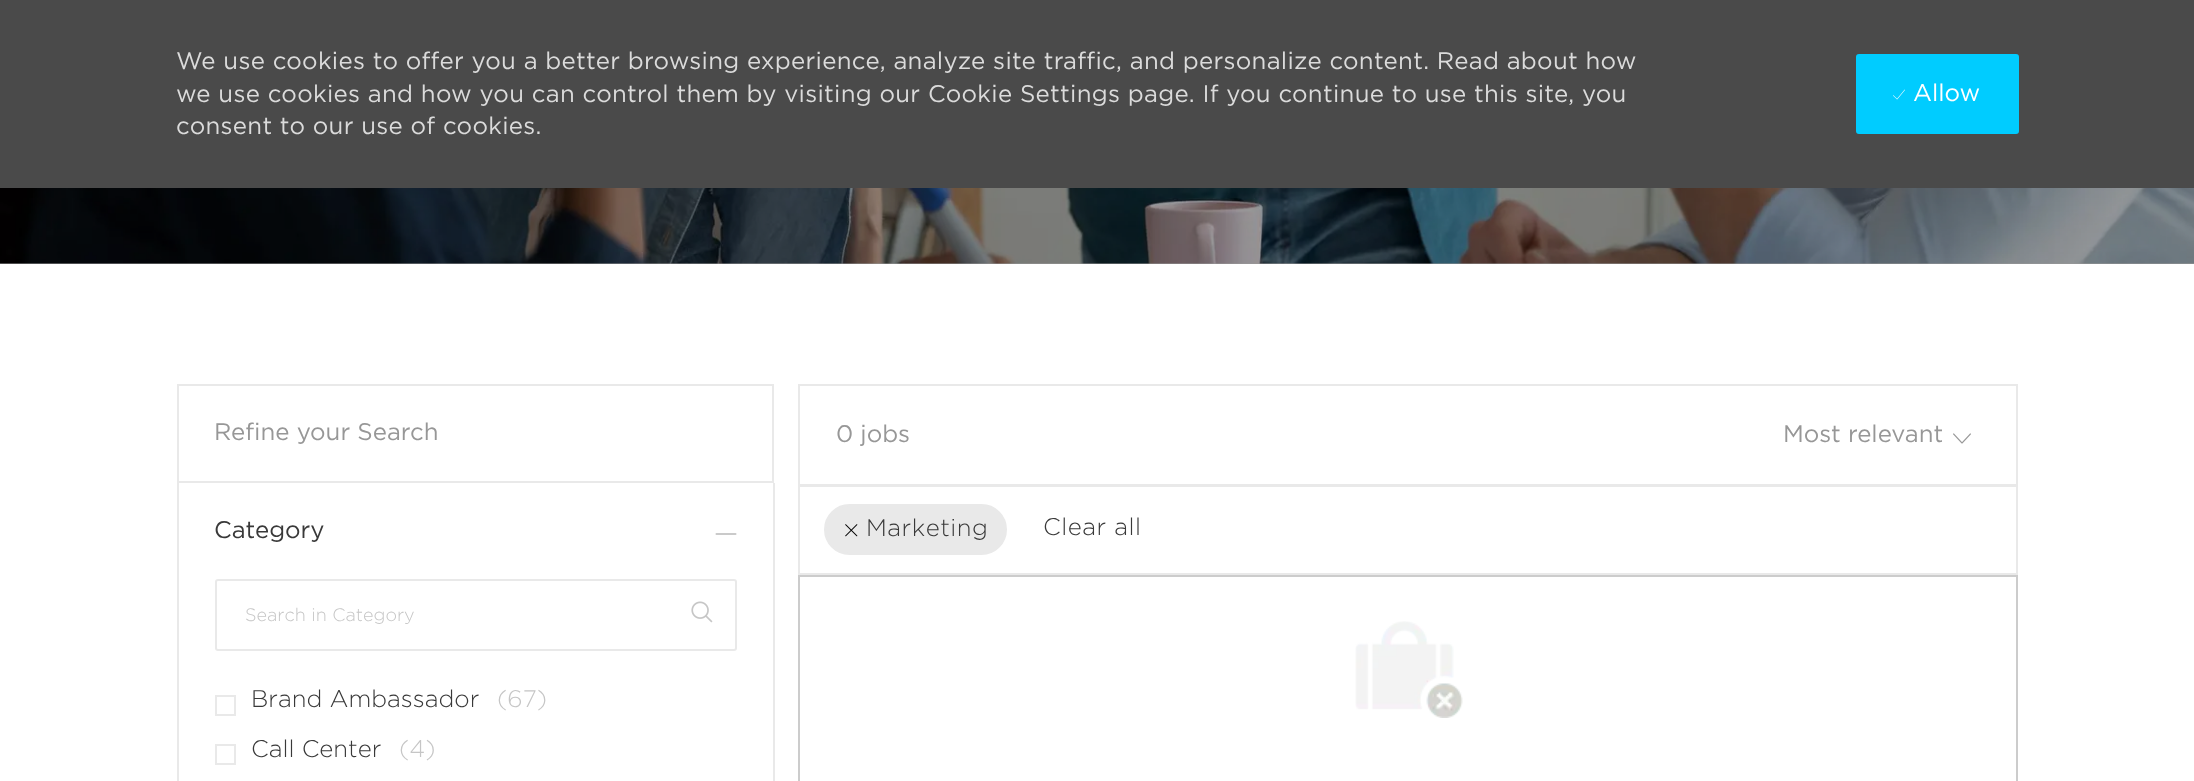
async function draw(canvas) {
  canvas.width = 2194
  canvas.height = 781
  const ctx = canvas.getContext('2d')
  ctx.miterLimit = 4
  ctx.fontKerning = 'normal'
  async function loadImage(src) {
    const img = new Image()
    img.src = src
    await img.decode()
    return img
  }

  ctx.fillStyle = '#fff'
  ctx.fillRect(0, 0, 2194, 781)
  ctx.fillStyle = '#999'
  ctx.fillRect(0, 263, 2194, 1)
  ctx.fillStyle = '#4a4a4a'
  ctx.fillRect(0, 0, 2194, 188)
  ctx.letterSpacing = '0.3px'
  ctx.font = '24px Gotham'
  ctx.fillStyle = '#dbdbdb'
  ctx.fillText('We use cookies to offer you a better browsing experience, analyze site traffic, and personalize content. Read about how', 176, 69)
  ctx.fillText('we use cookies and how you can control them by visiting our Cookie Settings page. If you continue to use this site, you', 176, 102)
  ctx.fillText('consent to our use of cookies.', 176, 134)
  ctx.fillStyle = '#0cf'
  ctx.beginPath()
  ctx.roundRect(1857, 55, 161, 78, 2)
  ctx.fill()
  ctx.strokeStyle = '#0cf'
  ctx.lineWidth = 2
  ctx.stroke()
  ctx.drawImage(await loadImage('image0.png'), 1893, 89, 12, 11)
  ctx.letterSpacing = '0px'
  ctx.fillStyle = '#fff'
  ctx.fillText('Allow', 1913, 101)
  ctx.drawImage(await loadImage('image1.png'), 0, 188, 2194, 76)
  ctx.strokeStyle = '#e9e9e9'
  ctx.strokeRect(178, 385, 595, 97)
  ctx.fillStyle = '#979797'
  ctx.fillText('Refine your Search', 214, 440)
  ctx.fillStyle = '#e9e9e9'
  ctx.fillRect(773, 483, 2, 298)
  ctx.fillRect(177, 483, 2, 298)
  ctx.fillStyle = '#393939'
  ctx.fillText('Category', 214, 538)
  ctx.drawImage(await loadImage('image2.png'), 715, 533, 22, 2)
  ctx.beginPath()
  ctx.roundRect(216, 580, 520, 70, 2)
  ctx.stroke()
  ctx.font = '300 18px Gotham'
  ctx.fillStyle = '#c6c6c6'
  ctx.fillText('Search in Category', 245, 621)
  ctx.drawImage(await loadImage('image3.png'), 691, 601, 22, 22)
  ctx.strokeRect(216, 696, 19, 19)
  ctx.font = '300 24px Gotham'
  ctx.fillStyle = '#393939'
  ctx.fillText('Brand Ambassador', 251, 707)
  ctx.fillStyle = '#c6c6c6'
  ctx.fillText('(67)', 497, 707)
  ctx.strokeRect(216, 745, 19, 19)
  ctx.fillStyle = '#393939'
  ctx.fillText('Call Center', 251, 757)
  ctx.fillStyle = '#c6c6c6'
  ctx.fillText('(4)', 399, 757)
  ctx.strokeRect(799, 385, 1218, 100)
  ctx.font = '24px Gotham'
  ctx.fillStyle = '#979797'
  ctx.fillText('0 jobs', 836, 442)
  ctx.fillText('Most relevant', 1783, 442)
  ctx.drawImage(await loadImage('image4.png'), 1953, 433, 18, 11)
  ctx.strokeRect(799, 486, 1218, 88)
  ctx.fillStyle = '#e9e9e9'
  ctx.beginPath()
  ctx.roundRect(825, 505, 181, 49, 24.5)
  ctx.fill()
  ctx.stroke()
  ctx.drawImage(await loadImage('image5.png'), 845, 524, 13, 13)
  ctx.letterSpacing = '0.5px'
  ctx.font = '300 24px Gotham'
  ctx.fillStyle = '#393939'
  ctx.fillText('Marketing', 866, 536)
  ctx.fillText('Clear all', 1043, 535)
  ctx.strokeStyle = '#ccc'
  ctx.strokeRect(799, 576, 1218, 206)
  ctx.drawImage(await loadImage('image6.png'), 1355, 621, 108, 97)
}

draw(document.querySelector('canvas'))
